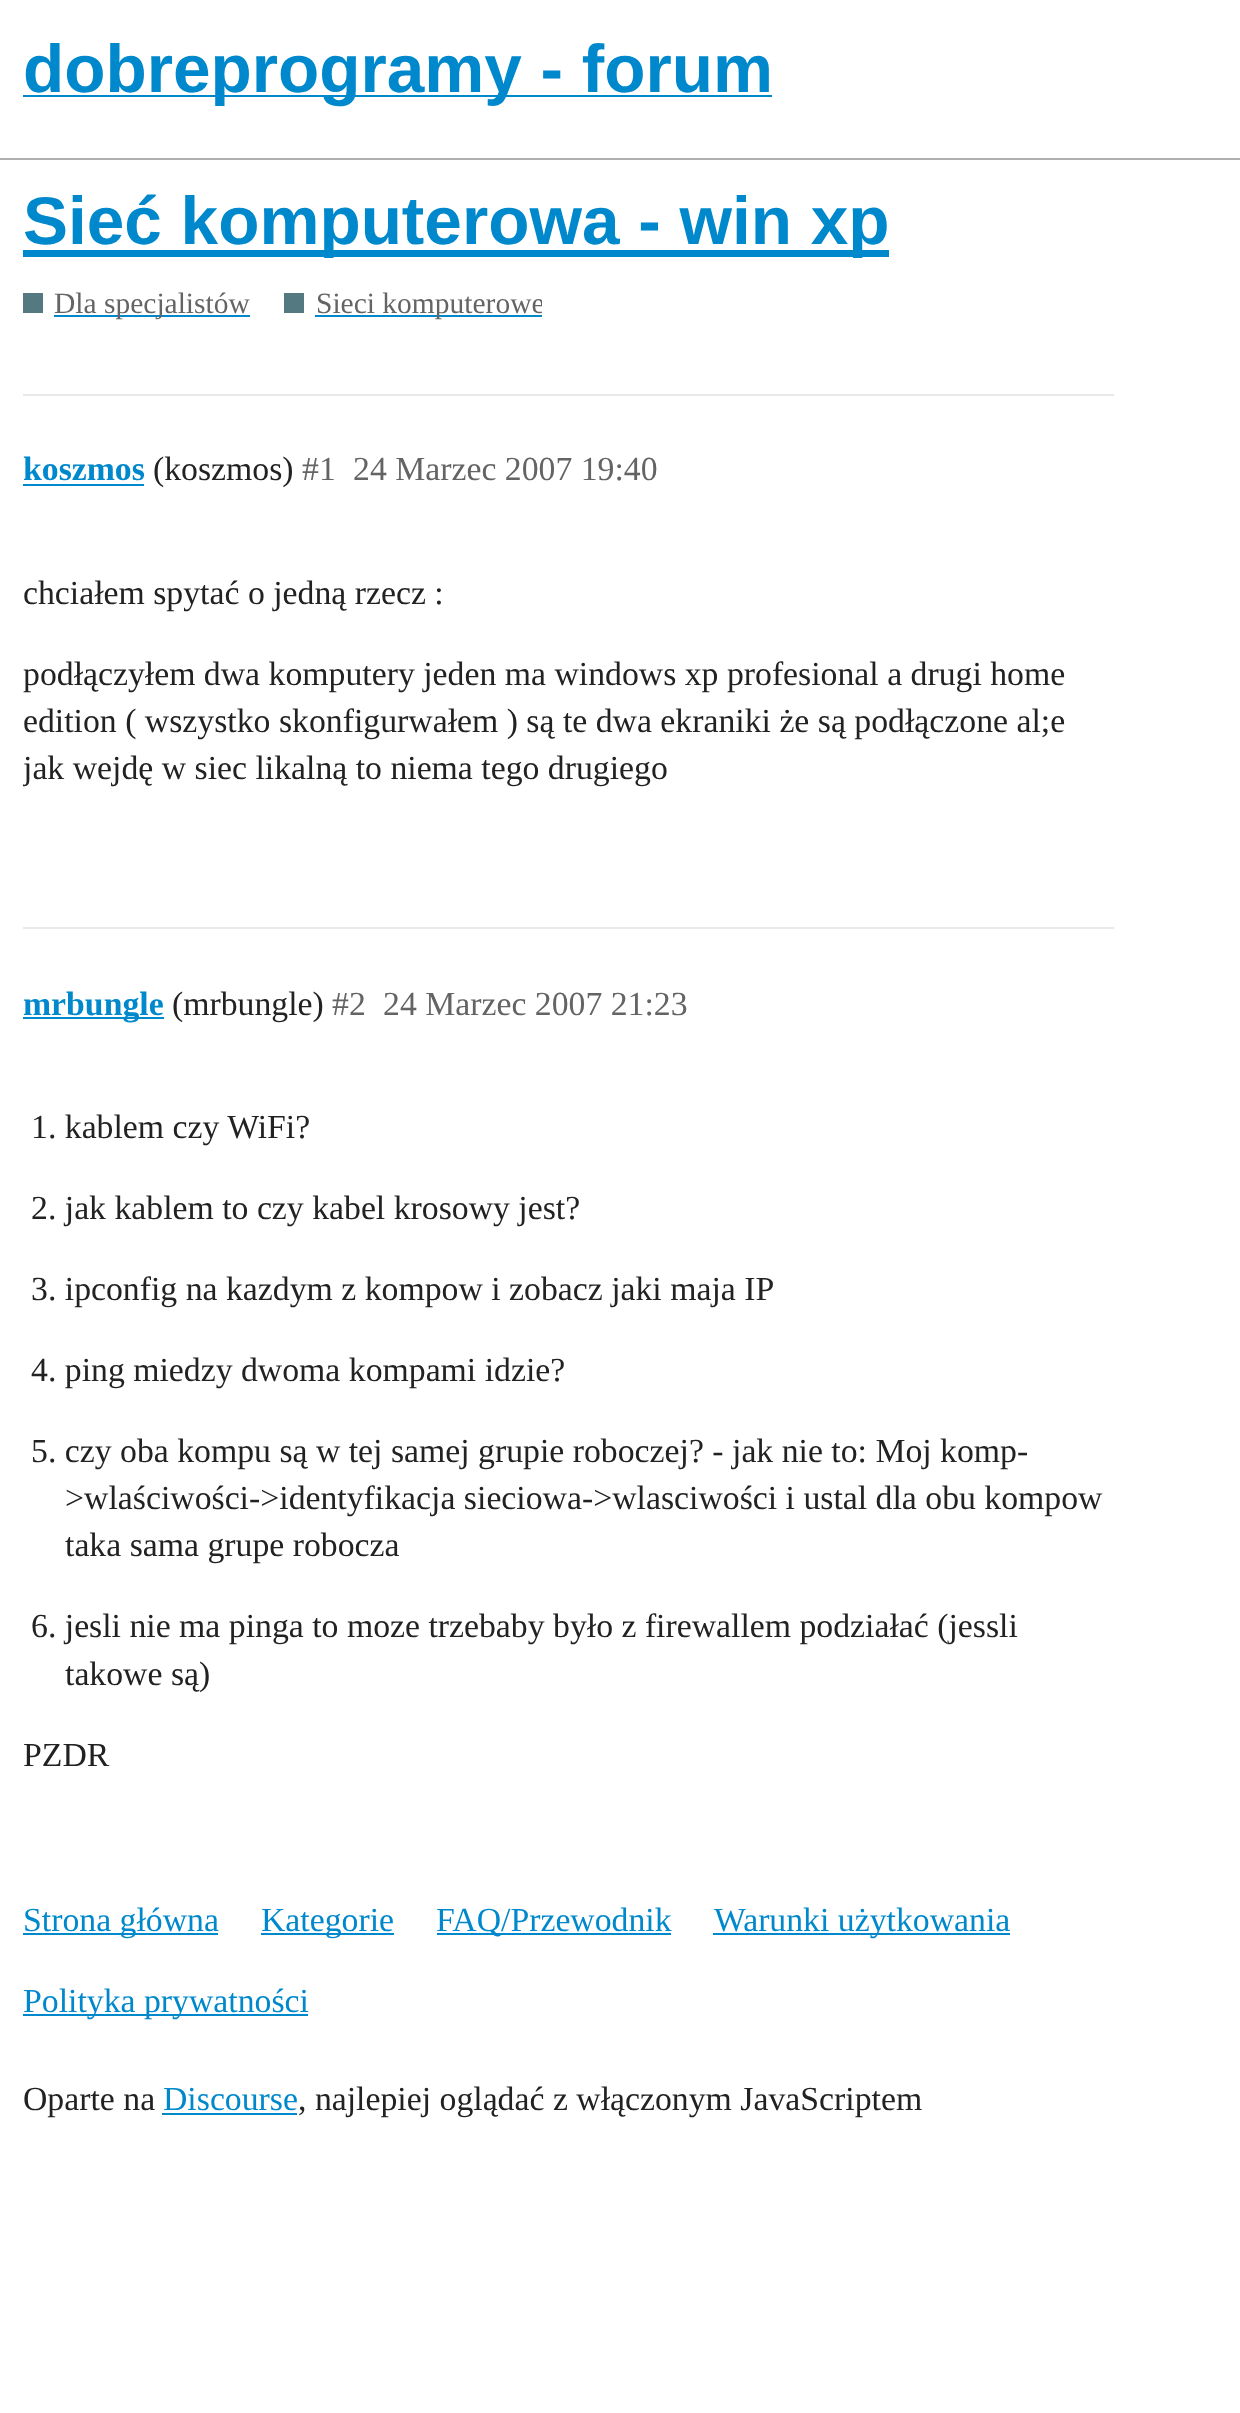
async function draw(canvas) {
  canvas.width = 1240
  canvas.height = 2413
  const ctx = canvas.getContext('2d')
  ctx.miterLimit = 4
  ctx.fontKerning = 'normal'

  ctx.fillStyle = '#fff'
  ctx.fillRect(0, 0, 1240, 2413)
  ctx.fillStyle = '#afafaf'
  ctx.fillRect(0, 158, 1240, 2)
  ctx.fillStyle = '#08c'
  ctx.fillRect(23, 95, 749, 2)
  ctx.font = 'bold 67.5px Liberation Sans'
  ctx.fillText('dobreprogramy - forum', 23, 92)
  ctx.fillRect(23, 250, 866, 7)
  ctx.fillText('Sieć komputerowa - win xp', 23, 244)
  ctx.fillStyle = '#547980'
  ctx.fillRect(23, 293, 20, 20)
  ctx.fillStyle = '#08c'
  ctx.fillRect(54, 315, 196, 2)
  ctx.font = '29.5px Liberation Serif'
  ctx.fillStyle = '#646464'
  ctx.fillText('Dla specjalistów', 54, 313)
  ctx.fillStyle = '#547980'
  ctx.fillRect(284, 293, 20, 20)
  ctx.fillStyle = '#08c'
  ctx.fillRect(315, 315, 227, 2)
  ctx.save()
  ctx.beginPath()
  ctx.rect(315, 284, 227, 40)
  ctx.clip()
  ctx.fillStyle = '#646464'
  ctx.fillText('Sieci komputerowe', 316, 313)
  ctx.restore()
  ctx.fillStyle = '#e9e9e9'
  ctx.fillRect(23, 394, 1091, 2)
  ctx.font = 'bold 33.75px Liberation Serif'
  ctx.fillStyle = '#08c'
  ctx.fillText('koszmos', 23, 480)
  ctx.fillRect(23, 484, 121, 2)
  ctx.font = '33.75px Liberation Serif'
  ctx.fillStyle = '#222'
  ctx.fillText('(koszmos)', 153, 480)
  ctx.fillStyle = '#646464'
  ctx.fillText('#1', 302, 480)
  ctx.fillText('24 Marzec 2007 19:40', 353, 480)
  ctx.fillStyle = '#222'
  ctx.fillText('chciałem spytać o jedną rzecz :', 23, 604)
  ctx.fillText('podłączyłem dwa komputery jeden ma windows xp profesional a drugi home', 23, 685)
  ctx.fillText('edition ( wszystko skonfigurwałem ) są te dwa ekraniki że są podłączone al;e', 23, 732)
  ctx.save()
  ctx.beginPath()
  ctx.rect(23, 536, 1091, 290)
  ctx.clip()
  ctx.fillText('jak wejdę w siec likalną to niema tego drugiego', 23, 779)
  ctx.restore()
  ctx.fillStyle = '#e9e9e9'
  ctx.fillRect(23, 927, 1091, 2)
  ctx.fillStyle = '#08c'
  ctx.fillRect(23, 1017, 141, 2)
  ctx.font = 'bold 33.75px Liberation Serif'
  ctx.fillText('mrbungle', 23, 1015)
  ctx.font = '33.75px Liberation Serif'
  ctx.fillStyle = '#222'
  ctx.fillText('(mrbungle)', 172, 1015)
  ctx.fillStyle = '#646464'
  ctx.fillText('#2', 332, 1015)
  ctx.fillText('24 Marzec 2007 21:23', 383, 1015)
  ctx.fillStyle = '#222'
  ctx.fillText('1. kablem czy WiFi?', 31, 1138)
  ctx.fillText('2. jak kablem to czy kabel krosowy jest?', 31, 1219)
  ctx.fillText('3. ipconfig na kazdym z kompow i zobacz jaki maja IP', 31, 1300)
  ctx.fillText('4. ping miedzy dwoma kompami idzie?', 31, 1381)
  ctx.fillText('5. czy oba kompu są w tej samej grupie roboczej? - jak nie to: Moj komp-', 31, 1462)
  ctx.fillText('>wlaściwości->identyfikacja sieciowa->wlasciwości i ustal dla obu kompow', 65, 1509)
  ctx.fillText('taka sama grupe robocza', 65, 1556)
  ctx.fillText('6. jesli nie ma pinga to moze trzebaby było z firewallem podziałać (jessli', 31, 1637)
  ctx.fillText('takowe są)', 65, 1685)
  ctx.fillText('PZDR', 23, 1766)
  ctx.fillStyle = '#08c'
  ctx.fillRect(23, 1933, 195, 2)
  ctx.fillText('Strona główna', 23, 1931)
  ctx.fillRect(261, 1933, 133, 2)
  ctx.fillText('Kategorie', 261, 1931)
  ctx.fillRect(437, 1933, 234, 2)
  ctx.fillText('FAQ/Przewodnik', 436, 1931)
  ctx.fillRect(713, 1933, 297, 2)
  ctx.fillText('Warunki użytkowania', 714, 1931)
  ctx.fillRect(23, 2014, 285, 2)
  ctx.fillText('Polityka prywatności', 23, 2012)
  ctx.fillStyle = '#222'
  ctx.fillText('Oparte na', 23, 2110)
  ctx.fillStyle = '#08c'
  ctx.fillText('Discourse', 163, 2110)
  ctx.fillRect(162, 2113, 135, 2)
  ctx.fillStyle = '#222'
  ctx.fillText(', najlepiej oglądać z włączonym JavaScriptem', 298, 2110)
}

draw(document.querySelector('canvas'))
